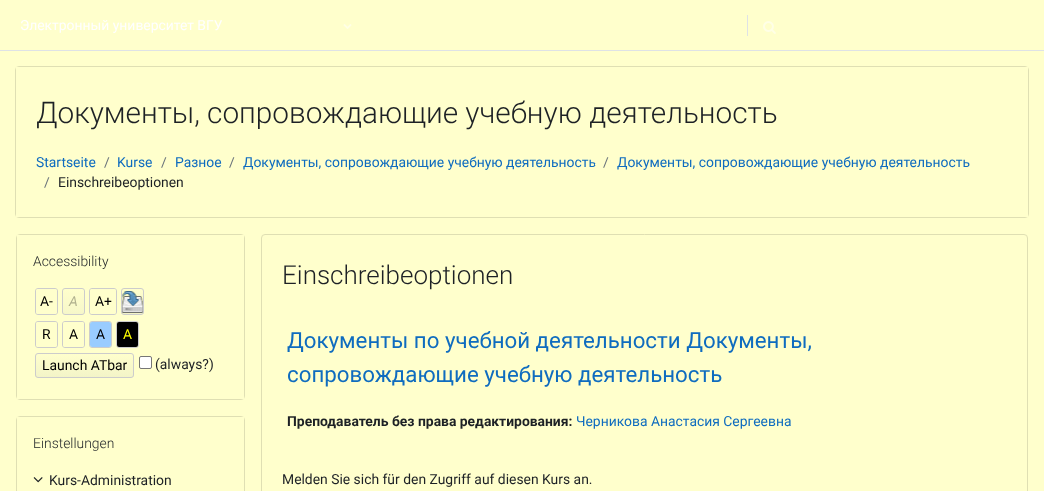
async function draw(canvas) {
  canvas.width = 1044
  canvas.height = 491
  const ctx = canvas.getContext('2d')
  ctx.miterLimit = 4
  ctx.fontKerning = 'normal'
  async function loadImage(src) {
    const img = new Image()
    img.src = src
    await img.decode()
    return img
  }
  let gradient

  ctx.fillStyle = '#ffc'
  ctx.fillRect(0, 0, 1044, 491)
  ctx.fillStyle = '#dee2e6'
  ctx.fillRect(0, 50, 1044, 1)
  ctx.font = '13.9px Roboto'
  ctx.fillStyle = '#fff'
  ctx.fillText('Электронный университет ВГУ', 20, 30)
  ctx.drawImage(await loadImage('image0.png'), 343, 24, 9, 5)
  ctx.fillStyle = '#dee2e6'
  ctx.fillRect(747, 15, 1, 21)
  ctx.drawImage(await loadImage('image1.png'), 763, 21, 13, 13)
  ctx.beginPath()
  ctx.roundRect(15.5, 66.5, 1013, 151, 3.5)
  ctx.strokeStyle = '#dfdfb3'
  ctx.stroke()
  ctx.fillStyle = '#ffc'
  ctx.fillRect(16, 67, 1012, 150)
  ctx.font = '300 29.75px Roboto'
  ctx.fillStyle = '#1d2125'
  ctx.fillText('Документы, сопровождающие учебную деятельность', 36, 123)
  ctx.font = '13.9px Roboto'
  ctx.fillStyle = '#0f6cbf'
  ctx.fillText('Startseite', 36, 167)
  ctx.fillStyle = '#6a737b'
  ctx.fillText('/', 104, 167)
  ctx.fillStyle = '#0f6cbf'
  ctx.fillText('Kurse', 117, 167)
  ctx.fillStyle = '#6a737b'
  ctx.fillText('/', 161, 167)
  ctx.fillStyle = '#0f6cbf'
  ctx.fillText('Разное', 175, 167)
  ctx.fillStyle = '#6a737b'
  ctx.fillText('/', 229, 167)
  ctx.fillStyle = '#0f6cbf'
  ctx.fillText('Документы, сопровождающие учебную деятельность', 243, 167)
  ctx.fillStyle = '#ffc'
  ctx.fillRect(595, 164, 1, 1)
  ctx.fillStyle = '#6a737b'
  ctx.fillText('/', 603, 167)
  ctx.fillStyle = '#0f6cbf'
  ctx.fillText('Документы, сопровождающие учебную деятельность', 617, 167)
  ctx.fillStyle = '#6a737b'
  ctx.fillText('/', 44, 187)
  ctx.fillStyle = '#1d2125'
  ctx.fillText('Einschreibeoptionen', 58, 187)
  ctx.beginPath()
  ctx.roundRect(16.5, 234.5, 228, 165, 3.5)
  ctx.stroke()
  ctx.fillStyle = '#ffc'
  ctx.fillRect(17, 235, 227, 164)
  ctx.font = '300 13.9px Roboto'
  ctx.fillStyle = '#1d2125'
  ctx.fillText('Accessibility', 33, 266)
  ctx.beginPath()
  ctx.roundRect(35.5, 288.5, 22, 26, 2.5)
  ctx.strokeStyle = '#ccc'
  ctx.stroke()
  ctx.fillStyle = '#ffc'
  ctx.beginPath()
  ctx.roundRect(36, 289, 21, 25, 2)
  ctx.fill()
  ctx.font = '13.9px Roboto'
  ctx.fillStyle = '#000'
  ctx.fillText('A-', 40, 306)
  ctx.save()
  ctx.beginPath()
  ctx.roundRect(62, 288, 23, 27, 3)
  ctx.clip()
  gradient = ctx.createLinearGradient(74, 289, 74, 314)
  gradient.addColorStop(0, '#ffc')
  gradient.addColorStop(1, '#f3f4c8')
  ctx.fillStyle = gradient
  ctx.fillRect(62, 289, 23, 25)
  ctx.restore()
  ctx.beginPath()
  ctx.roundRect(62.5, 288.5, 22, 26, 2.5)
  ctx.stroke()
  ctx.fillStyle = '#ffffcc4d'
  ctx.beginPath()
  ctx.roundRect(63, 289, 21, 25, 2)
  ctx.fill()
  ctx.font = 'italic 13.9px Roboto'
  ctx.fillStyle = '#b0b08e'
  ctx.fillText('A', 69, 306)
  ctx.beginPath()
  ctx.roundRect(89.5, 288.5, 27, 26, 2.5)
  ctx.stroke()
  ctx.fillStyle = '#ffc'
  ctx.beginPath()
  ctx.roundRect(90, 289, 26, 25, 2)
  ctx.fill()
  ctx.font = '13.9px Roboto'
  ctx.fillStyle = '#000'
  ctx.fillText('A+', 95, 306)
  ctx.save()
  ctx.beginPath()
  ctx.roundRect(121, 288, 23, 27, 3)
  ctx.clip()
  gradient = ctx.createLinearGradient(133, 289, 133, 314)
  gradient.addColorStop(0, '#ffc')
  gradient.addColorStop(1, '#f3f4c8')
  ctx.fillStyle = gradient
  ctx.fillRect(121, 289, 23, 25)
  ctx.restore()
  ctx.beginPath()
  ctx.roundRect(121.5, 288.5, 22, 26, 2.5)
  ctx.stroke()
  ctx.drawImage(await loadImage('image2.png'), 122, 291, 21, 22)
  ctx.beginPath()
  ctx.roundRect(35.5, 321.5, 22, 26, 2.5)
  ctx.stroke()
  ctx.fillStyle = '#ffc'
  ctx.beginPath()
  ctx.roundRect(36, 322, 21, 25, 2)
  ctx.fill()
  ctx.fillStyle = '#000'
  ctx.fillText('R', 42, 339)
  ctx.beginPath()
  ctx.roundRect(62.5, 321.5, 22, 26, 2.5)
  ctx.stroke()
  ctx.fillStyle = '#ffc'
  ctx.beginPath()
  ctx.roundRect(63, 322, 21, 25, 2)
  ctx.fill()
  ctx.fillStyle = '#000'
  ctx.fillText('A', 69, 339)
  ctx.beginPath()
  ctx.roundRect(89.5, 321.5, 22, 26, 2.5)
  ctx.stroke()
  ctx.fillStyle = '#9cf'
  ctx.beginPath()
  ctx.roundRect(90, 322, 21, 25, 2)
  ctx.fill()
  ctx.fillStyle = '#000'
  ctx.fillText('A', 96, 339)
  ctx.beginPath()
  ctx.roundRect(116.5, 321.5, 22, 26, 2.5)
  ctx.stroke()
  ctx.beginPath()
  ctx.roundRect(117, 322, 21, 25, 2)
  ctx.fill()
  ctx.fillStyle = '#ff0'
  ctx.fillText('A', 123, 339)
  ctx.save()
  ctx.beginPath()
  ctx.roundRect(35, 353, 99, 25, 3)
  ctx.clip()
  gradient = ctx.createLinearGradient(85, 354, 85, 377)
  gradient.addColorStop(0, '#ffc')
  gradient.addColorStop(1, '#f3f4c8')
  ctx.fillStyle = gradient
  ctx.fillRect(35, 354, 99, 23)
  ctx.restore()
  ctx.beginPath()
  ctx.roundRect(35.5, 353.5, 98, 24, 2.5)
  ctx.stroke()
  ctx.fillStyle = '#000'
  ctx.fillText('Launch ATbar', 42, 370)
  ctx.fillStyle = '#fff'
  ctx.beginPath()
  ctx.roundRect(139.5, 356.5, 12, 12, 1.5)
  ctx.fill()
  ctx.strokeStyle = '#767676'
  ctx.stroke()
  ctx.fillStyle = '#1d2125'
  ctx.fillText('(always?)', 155, 369)
  ctx.beginPath()
  ctx.roundRect(16.5, 416.5, 228, 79, 3.5)
  ctx.strokeStyle = '#dfdfb3'
  ctx.stroke()
  ctx.fillStyle = '#ffc'
  ctx.fillRect(17, 417, 227, 3)
  ctx.font = '300 13.9px Roboto'
  ctx.fillStyle = '#1d2125'
  ctx.fillText('Einstellungen', 33, 448)
  ctx.drawImage(await loadImage('image3.png'), 33, 477, 10, 6)
  ctx.font = '13.9px Roboto'
  ctx.fillText('Kurs-Administration', 49, 485)
  ctx.beginPath()
  ctx.roundRect(261.5, 234.5, 766, 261, 3.5)
  ctx.stroke()
  ctx.font = '300 26px Roboto'
  ctx.fillText('Einschreibeoptionen', 282, 284)
  ctx.font = '22.3px Roboto'
  ctx.fillStyle = '#0f6cbf'
  ctx.fillText('Документы по учебной деятельности Документы,', 287, 348)
  ctx.fillText('сопровождающие учебную деятельность', 287, 382)
  ctx.font = 'bold 13.9px Roboto'
  ctx.fillStyle = '#1d2125'
  ctx.fillText('Преподаватель без права редактирования:', 287, 426)
  ctx.font = '13.9px Roboto'
  ctx.fillStyle = '#0f6cbf'
  ctx.fillText('Черникова Анастасия Сергеевна', 576, 426)
  ctx.fillStyle = '#1d2125'
  ctx.fillText('Melden Sie sich für den Zugriff auf diesen Kurs an.', 282, 484)
}

draw(document.querySelector('canvas'))
